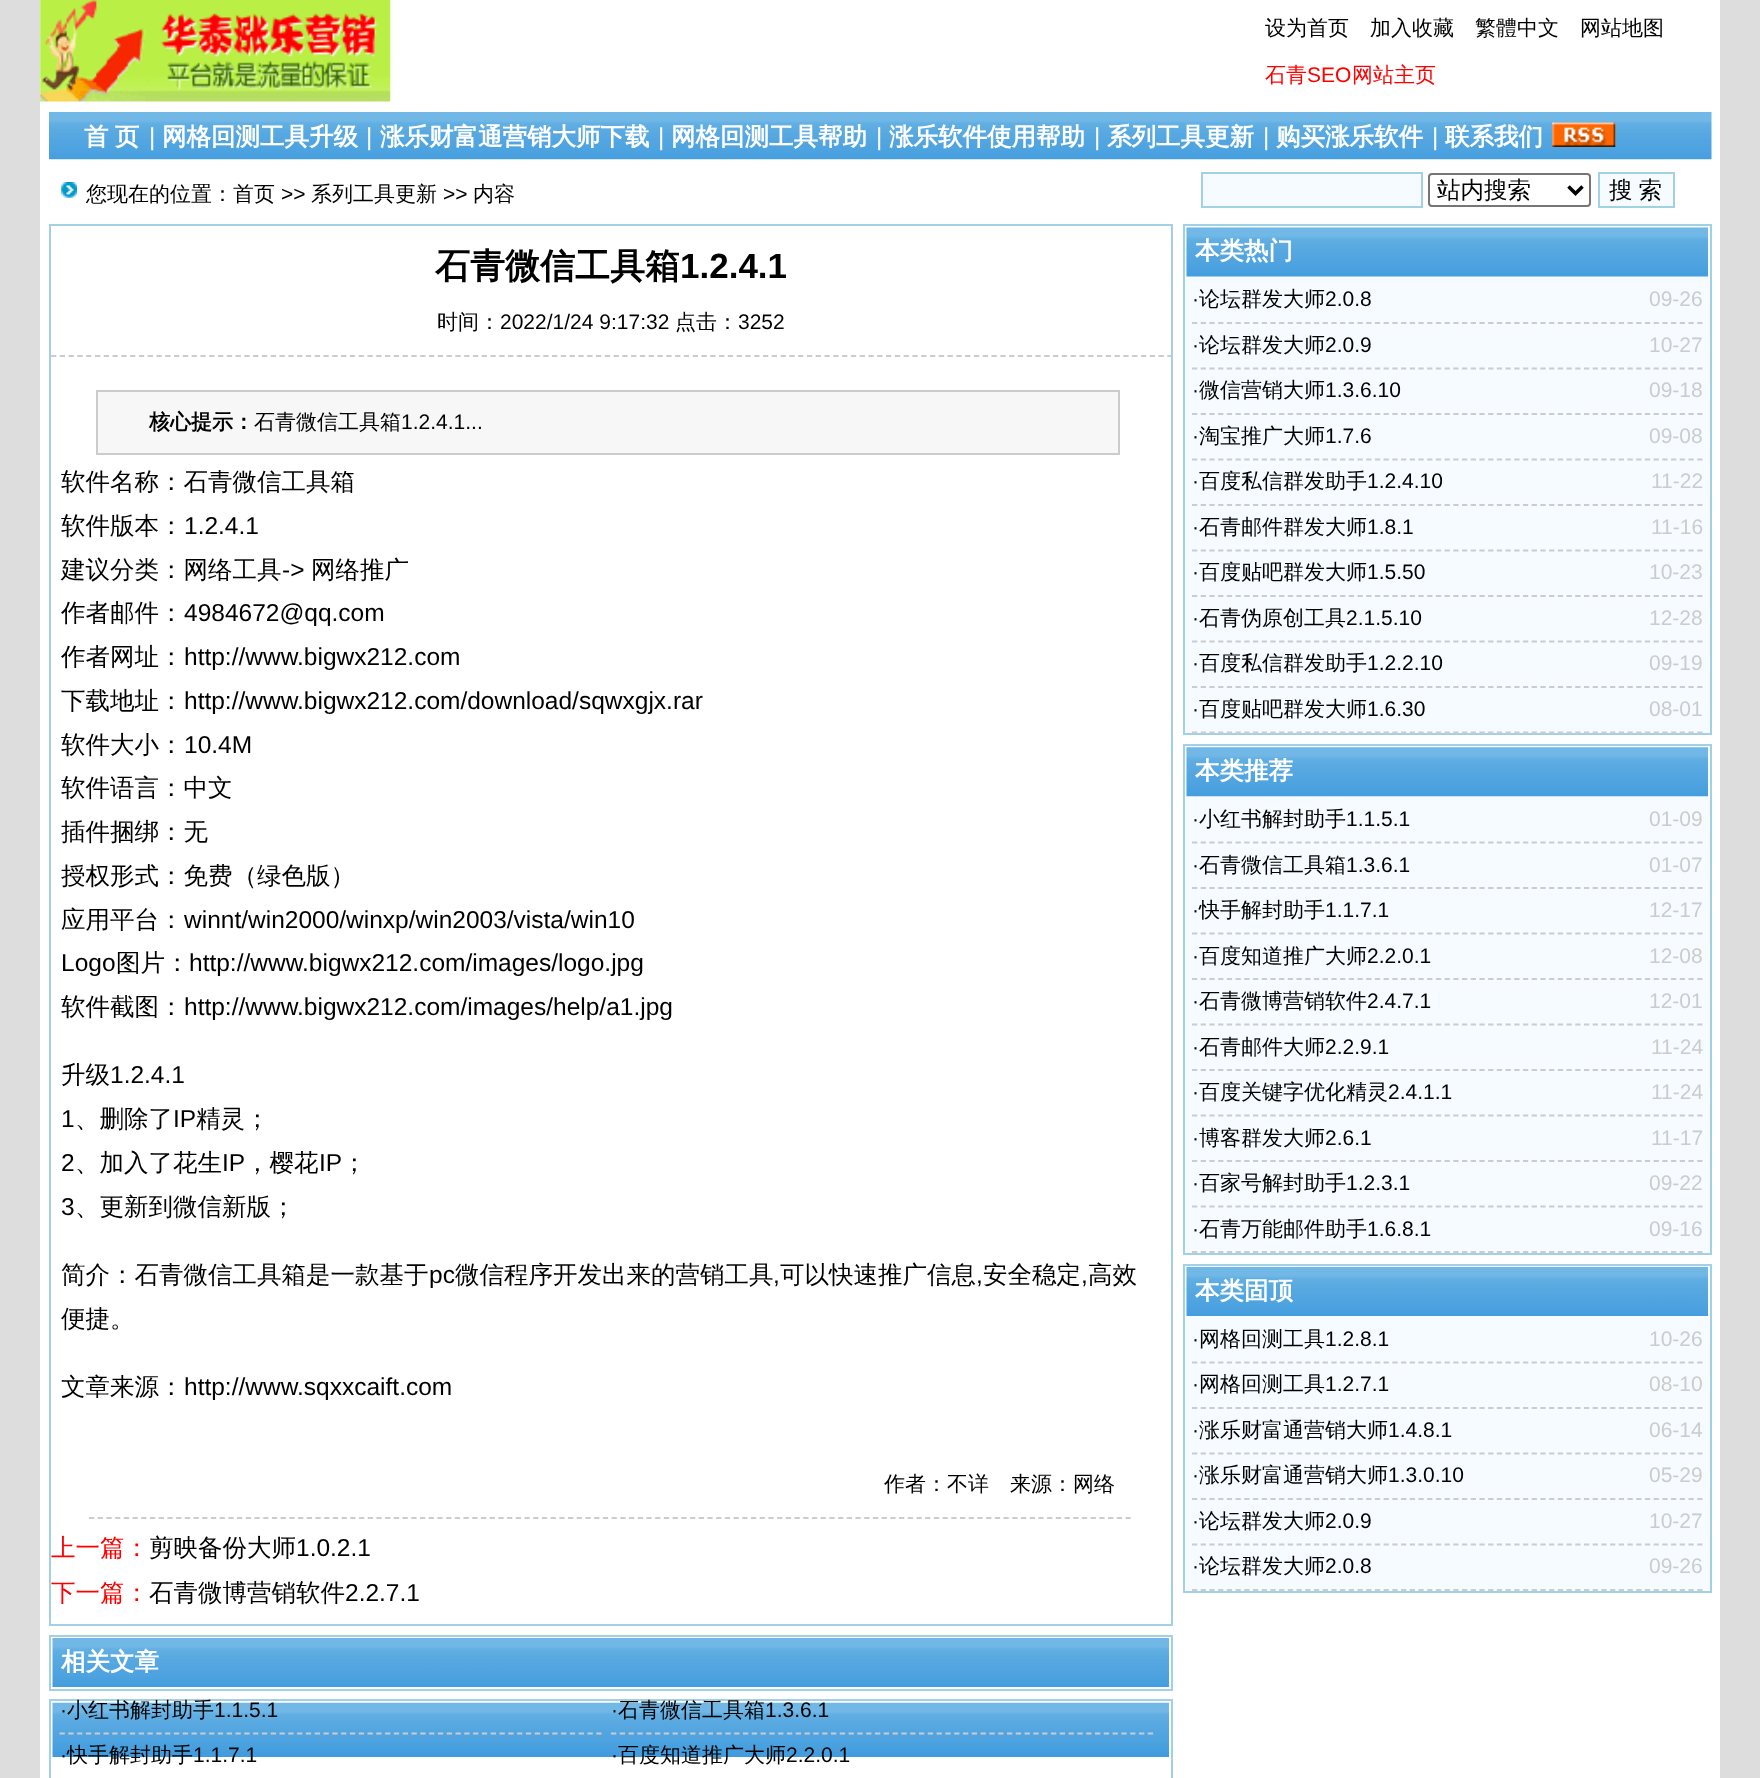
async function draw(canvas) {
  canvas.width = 1760
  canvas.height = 1778
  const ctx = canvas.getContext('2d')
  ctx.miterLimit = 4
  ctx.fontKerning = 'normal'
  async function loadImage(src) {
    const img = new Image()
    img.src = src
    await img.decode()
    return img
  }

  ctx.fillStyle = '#ddd'
  ctx.fillRect(0, 0, 1760, 1778)
  ctx.fillStyle = '#fff'
  ctx.fillRect(40, 0, 1680, 1778)
  ctx.drawImage(await loadImage('image0.png'), 40, 0, 351, 102)
  ctx.font = '500 21px WenQuanYi Zen Hei'
  ctx.fillStyle = '#000'
  ctx.fillText('设为首页', 1265, 35)
  ctx.fillText('加入收藏', 1370, 35)
  ctx.fillText('繁體中文', 1475, 35)
  ctx.fillText('网站地图', 1580, 35)
  ctx.fillStyle = '#f00'
  ctx.fillText('石青', 1265, 82)
  ctx.font = '21px Liberation Sans'
  ctx.fillText('SEO', 1307, 82)
  ctx.font = '500 21px WenQuanYi Zen Hei'
  ctx.fillText('网站主页', 1352, 82)
  ctx.drawImage(await loadImage('image1.png'), 49, 112, 1663, 48)
  ctx.wordSpacing = '-1px'
  ctx.font = 'bold 24.5px WenQuanYi Zen Hei'
  ctx.fillStyle = '#fff'
  ctx.fillText('首 页', 84, 145)
  ctx.wordSpacing = '0px'
  ctx.font = '24.5px Liberation Sans'
  ctx.fillText('|', 149, 145)
  ctx.font = 'bold 24.5px WenQuanYi Zen Hei'
  ctx.fillText('网格回测工具升级', 162, 145)
  ctx.font = '24.5px Liberation Sans'
  ctx.fillText('|', 366, 145)
  ctx.font = 'bold 24.5px WenQuanYi Zen Hei'
  ctx.fillText('涨乐财富通营销大师下载', 380, 145)
  ctx.font = '24.5px Liberation Sans'
  ctx.fillText('|', 658, 145)
  ctx.font = 'bold 24.5px WenQuanYi Zen Hei'
  ctx.fillText('网格回测工具帮助', 671, 145)
  ctx.font = '24.5px Liberation Sans'
  ctx.fillText('|', 876, 145)
  ctx.font = 'bold 24.5px WenQuanYi Zen Hei'
  ctx.fillText('涨乐软件使用帮助', 889, 145)
  ctx.font = '24.5px Liberation Sans'
  ctx.fillText('|', 1094, 145)
  ctx.font = 'bold 24.5px WenQuanYi Zen Hei'
  ctx.fillText('系列工具更新', 1107, 145)
  ctx.font = '24.5px Liberation Sans'
  ctx.fillText('|', 1263, 145)
  ctx.font = 'bold 24.5px WenQuanYi Zen Hei'
  ctx.fillText('购买涨乐软件', 1276, 145)
  ctx.font = '24.5px Liberation Sans'
  ctx.fillText('|', 1432, 145)
  ctx.font = 'bold 24.5px WenQuanYi Zen Hei'
  ctx.fillText('联系我们', 1445, 145)
  ctx.drawImage(await loadImage('image2.png'), 1552, 122, 64, 25)
  ctx.drawImage(await loadImage('image3.png'), 61, 182, 16, 16)
  ctx.font = '500 21px WenQuanYi Zen Hei'
  ctx.fillStyle = '#000'
  ctx.fillText('您现在的位置：首页', 86, 201)
  ctx.font = '21px Liberation Sans'
  ctx.fillText('>>', 281, 201)
  ctx.font = '500 21px WenQuanYi Zen Hei'
  ctx.fillText('系列工具更新', 311, 201)
  ctx.font = '21px Liberation Sans'
  ctx.fillText('>>', 443, 201)
  ctx.font = '500 21px WenQuanYi Zen Hei'
  ctx.fillText('内容', 473, 201)
  ctx.fillStyle = '#f5fbff'
  ctx.beginPath()
  ctx.rect(1202, 173, 220, 34)
  ctx.fill()
  ctx.strokeStyle = '#a2d0e5'
  ctx.lineWidth = 2
  ctx.stroke()
  ctx.beginPath()
  ctx.roundRect(1429, 174, 161, 32, 3)
  ctx.strokeStyle = '#767676'
  ctx.stroke()
  ctx.beginPath()
  ctx.moveTo(1568.5, 186.5)
  ctx.lineTo(1575.5, 193.5)
  ctx.lineTo(1582.5, 186.5)
  ctx.strokeStyle = '#000'
  ctx.lineWidth = 3.5
  ctx.stroke()
  ctx.font = '500 23.5px WenQuanYi Zen Hei'
  ctx.fillStyle = '#000'
  ctx.fillText('站内搜索', 1437, 198)
  ctx.fillStyle = '#f5fbff'
  ctx.beginPath()
  ctx.rect(1599, 173, 75, 34)
  ctx.fill()
  ctx.strokeStyle = '#a2d0e5'
  ctx.lineWidth = 2
  ctx.stroke()
  ctx.wordSpacing = '-1px'
  ctx.fillStyle = '#000'
  ctx.fillText('搜 索', 1609, 198)
  ctx.strokeRect(50, 225, 1122, 1400)
  ctx.wordSpacing = '0px'
  ctx.font = 'bold 35px WenQuanYi Zen Hei'
  ctx.fillText('石青微信工具箱', 435, 278)
  ctx.font = 'bold 35px Liberation Sans'
  ctx.fillText('1.2.4.1', 680, 278)
  ctx.beginPath()
  ctx.moveTo(51, 356)
  ctx.lineTo(1171, 356)
  ctx.strokeStyle = '#ccc'
  ctx.lineWidth = 1.8
  ctx.setLineDash([5.25, 3.54])
  ctx.stroke()
  ctx.font = '500 21px WenQuanYi Zen Hei'
  ctx.fillText('时间：', 437, 329)
  ctx.font = '21px Liberation Sans'
  ctx.fillText('2022/1/24 9:17:32', 500, 329)
  ctx.font = '500 21px WenQuanYi Zen Hei'
  ctx.fillText('点击：', 675, 329)
  ctx.font = '21px Liberation Sans'
  ctx.fillText('3252', 738, 329)
  ctx.fillStyle = '#f7f7f7'
  ctx.beginPath()
  ctx.rect(97, 391, 1022, 63)
  ctx.fill()
  ctx.lineWidth = 2
  ctx.setLineDash([])
  ctx.stroke()
  ctx.font = 'bold 21px WenQuanYi Zen Hei'
  ctx.fillStyle = '#000'
  ctx.fillText('核心提示：', 149, 429)
  ctx.font = '500 21px WenQuanYi Zen Hei'
  ctx.fillText('石青微信工具箱', 254, 429)
  ctx.font = '21px Liberation Sans'
  ctx.fillText('1.2.4.1...', 401, 429)
  ctx.font = '500 24.5px WenQuanYi Zen Hei'
  ctx.fillText('软件名称：石青微信工具箱', 61, 490)
  ctx.fillText('软件版本：', 61, 534)
  ctx.font = '24.5px Liberation Sans'
  ctx.fillText('1.2.4.1', 184, 534)
  ctx.font = '500 24.5px WenQuanYi Zen Hei'
  ctx.fillText('建议分类：网络工具', 61, 578)
  ctx.font = '24.5px Liberation Sans'
  ctx.fillText('->', 282, 578)
  ctx.font = '500 24.5px WenQuanYi Zen Hei'
  ctx.fillText('网络推广', 311, 578)
  ctx.fillText('作者邮件：', 61, 621)
  ctx.font = '24.5px Liberation Sans'
  ctx.fillText('4984672@qq.com', 184, 621)
  ctx.font = '500 24.5px WenQuanYi Zen Hei'
  ctx.fillText('作者网址：', 61, 665)
  ctx.font = '24.5px Liberation Sans'
  ctx.fillText('http://www.bigwx212.com', 184, 665)
  ctx.font = '500 24.5px WenQuanYi Zen Hei'
  ctx.fillText('下载地址：', 61, 709)
  ctx.font = '24.5px Liberation Sans'
  ctx.fillText('http://www.bigwx212.com/download/sqwxgjx.rar', 184, 709)
  ctx.font = '500 24.5px WenQuanYi Zen Hei'
  ctx.fillText('软件大小：', 61, 753)
  ctx.font = '24.5px Liberation Sans'
  ctx.fillText('10.4M', 184, 753)
  ctx.font = '500 24.5px WenQuanYi Zen Hei'
  ctx.fillText('软件语言：中文', 61, 796)
  ctx.fillText('插件捆绑：无', 61, 840)
  ctx.fillText('授权形式：免费（绿色版）', 61, 884)
  ctx.fillText('应用平台：', 61, 928)
  ctx.font = '24.5px Liberation Sans'
  ctx.fillText('winnt/win2000/winxp/win2003/vista/win10', 184, 928)
  ctx.fillText('Logo', 61, 971)
  ctx.font = '500 24.5px WenQuanYi Zen Hei'
  ctx.fillText('图片：', 116, 971)
  ctx.font = '24.5px Liberation Sans'
  ctx.fillText('http://www.bigwx212.com/images/logo.jpg', 189, 971)
  ctx.font = '500 24.5px WenQuanYi Zen Hei'
  ctx.fillText('软件截图：', 61, 1015)
  ctx.font = '24.5px Liberation Sans'
  ctx.fillText('http://www.bigwx212.com/images/help/a1.jpg', 184, 1015)
  ctx.font = '500 24.5px WenQuanYi Zen Hei'
  ctx.fillText('升级', 61, 1083)
  ctx.font = '24.5px Liberation Sans'
  ctx.fillText('1.2.4.1', 110, 1083)
  ctx.fillText('1', 61, 1127)
  ctx.font = '500 24.5px WenQuanYi Zen Hei'
  ctx.fillText('、删除了', 75, 1127)
  ctx.font = '24.5px Liberation Sans'
  ctx.fillText('IP', 173, 1127)
  ctx.font = '500 24.5px WenQuanYi Zen Hei'
  ctx.fillText('精灵；', 196, 1127)
  ctx.font = '24.5px Liberation Sans'
  ctx.fillText('2', 61, 1171)
  ctx.font = '500 24.5px WenQuanYi Zen Hei'
  ctx.fillText('、加入了花生', 75, 1171)
  ctx.font = '24.5px Liberation Sans'
  ctx.fillText('IP', 222, 1171)
  ctx.font = '500 24.5px WenQuanYi Zen Hei'
  ctx.fillText('，樱花', 245, 1171)
  ctx.font = '24.5px Liberation Sans'
  ctx.fillText('IP', 319, 1171)
  ctx.font = '500 24.5px WenQuanYi Zen Hei'
  ctx.fillText('；', 342, 1171)
  ctx.font = '24.5px Liberation Sans'
  ctx.fillText('3', 61, 1215)
  ctx.font = '500 24.5px WenQuanYi Zen Hei'
  ctx.fillText('、更新到微信新版；', 75, 1215)
  ctx.fillText('简介：石青微信工具箱是一款基于', 61, 1283)
  ctx.font = '24.5px Liberation Sans'
  ctx.fillText('pc', 429, 1283)
  ctx.font = '500 24.5px WenQuanYi Zen Hei'
  ctx.fillText('微信程序开发出来的营销工具', 455, 1283)
  ctx.font = '24.5px Liberation Sans'
  ctx.fillText(',', 773, 1283)
  ctx.font = '500 24.5px WenQuanYi Zen Hei'
  ctx.fillText('可以快速推广信息', 780, 1283)
  ctx.font = '24.5px Liberation Sans'
  ctx.fillText(',', 976, 1283)
  ctx.font = '500 24.5px WenQuanYi Zen Hei'
  ctx.fillText('安全稳定', 983, 1283)
  ctx.font = '24.5px Liberation Sans'
  ctx.fillText(',', 1081, 1283)
  ctx.font = '500 24.5px WenQuanYi Zen Hei'
  ctx.fillText('高效', 1088, 1283)
  ctx.fillText('便捷。', 61, 1327)
  ctx.fillText('文章来源：', 61, 1395)
  ctx.font = '24.5px Liberation Sans'
  ctx.fillText('http://www.sqxxcaift.com', 184, 1395)
  ctx.beginPath()
  ctx.moveTo(89, 1518)
  ctx.lineTo(1132, 1518)
  ctx.lineWidth = 1.8
  ctx.setLineDash([5.25, 3.46])
  ctx.stroke()
  ctx.font = '500 21px WenQuanYi Zen Hei'
  ctx.fillText('作者：不详　来源：网络', 884, 1491)
  ctx.font = '500 24.5px WenQuanYi Zen Hei'
  ctx.fillStyle = '#f00'
  ctx.fillText('上一篇：', 51, 1556)
  ctx.fillStyle = '#000'
  ctx.fillText('剪映备份大师', 149, 1556)
  ctx.font = '24.5px Liberation Sans'
  ctx.fillText('1.0.2.1', 296, 1556)
  ctx.font = '500 24.5px WenQuanYi Zen Hei'
  ctx.fillStyle = '#f00'
  ctx.fillText('下一篇：', 51, 1601)
  ctx.fillStyle = '#000'
  ctx.fillText('石青微博营销软件', 149, 1601)
  ctx.font = '24.5px Liberation Sans'
  ctx.fillText('2.2.7.1', 345, 1601)
  ctx.strokeStyle = '#a2d0e5'
  ctx.lineWidth = 2
  ctx.setLineDash([])
  ctx.strokeRect(50, 1636, 1122, 54)
  ctx.drawImage(await loadImage('image4.png'), 52, 1638, 1117, 49)
  ctx.font = 'bold 24.5px WenQuanYi Zen Hei'
  ctx.fillStyle = '#fff'
  ctx.fillText('相关文章', 61, 1670)
  ctx.strokeRect(50, 1700, 1122, 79)
  ctx.drawImage(await loadImage('image5.png'), 52, 1702, 1117, 55)
  ctx.beginPath()
  ctx.moveTo(59.5, 1733.5)
  ctx.lineTo(602, 1733.5)
  ctx.strokeStyle = '#ccc'
  ctx.lineWidth = 1.8
  ctx.setLineDash([5.25, 3.55])
  ctx.stroke()
  ctx.font = '21px Liberation Sans'
  ctx.fillStyle = '#000'
  ctx.fillText('·', 60, 1717)
  ctx.font = '500 21px WenQuanYi Zen Hei'
  ctx.fillText('小红书解封助手', 67, 1717)
  ctx.font = '21px Liberation Sans'
  ctx.fillText('1.1.5.1', 214, 1717)
  ctx.beginPath()
  ctx.moveTo(611, 1733.5)
  ctx.lineTo(1153, 1733.5)
  ctx.stroke()
  ctx.fillText('·', 611, 1717)
  ctx.font = '500 21px WenQuanYi Zen Hei'
  ctx.fillText('石青微信工具箱', 618, 1717)
  ctx.font = '21px Liberation Sans'
  ctx.fillText('1.3.6.1', 765, 1717)
  ctx.fillText('·', 60, 1762)
  ctx.font = '500 21px WenQuanYi Zen Hei'
  ctx.fillText('快手解封助手', 67, 1762)
  ctx.font = '21px Liberation Sans'
  ctx.fillText('1.1.7.1', 193, 1762)
  ctx.fillText('·', 611, 1762)
  ctx.font = '500 21px WenQuanYi Zen Hei'
  ctx.fillText('百度知道推广大师', 618, 1762)
  ctx.font = '21px Liberation Sans'
  ctx.fillText('2.2.0.1', 786, 1762)
  ctx.fillStyle = '#f5fbff'
  ctx.beginPath()
  ctx.rect(1184, 225, 527, 509)
  ctx.fill()
  ctx.strokeStyle = '#a2d0e5'
  ctx.lineWidth = 2
  ctx.setLineDash([])
  ctx.stroke()
  ctx.drawImage(await loadImage('image6.png'), 1186, 227, 522, 50)
  ctx.font = 'bold 24.5px WenQuanYi Zen Hei'
  ctx.fillStyle = '#fff'
  ctx.fillText('本类热门', 1195, 259)
  ctx.beginPath()
  ctx.moveTo(1192, 323)
  ctx.lineTo(1703, 323)
  ctx.strokeStyle = '#ccc'
  ctx.lineWidth = 1.8
  ctx.setLineDash([5.25, 3.46])
  ctx.stroke()
  ctx.font = '21px Liberation Sans'
  ctx.fillStyle = '#000'
  ctx.fillText('·', 1192, 306)
  ctx.font = '500 21px WenQuanYi Zen Hei'
  ctx.fillText('论坛群发大师', 1199, 306)
  ctx.font = '21px Liberation Sans'
  ctx.fillText('2.0.8', 1325, 306)
  ctx.fillStyle = '#ccc'
  ctx.fillText('09-26', 1649, 306)
  ctx.beginPath()
  ctx.moveTo(1192, 368.5)
  ctx.lineTo(1703, 368.5)
  ctx.stroke()
  ctx.fillStyle = '#000'
  ctx.fillText('·', 1192, 352)
  ctx.font = '500 21px WenQuanYi Zen Hei'
  ctx.fillText('论坛群发大师', 1199, 352)
  ctx.font = '21px Liberation Sans'
  ctx.fillText('2.0.9', 1325, 352)
  ctx.fillStyle = '#ccc'
  ctx.fillText('10-27', 1649, 352)
  ctx.beginPath()
  ctx.moveTo(1192, 414)
  ctx.lineTo(1703, 414)
  ctx.stroke()
  ctx.fillStyle = '#000'
  ctx.fillText('·', 1192, 397)
  ctx.font = '500 21px WenQuanYi Zen Hei'
  ctx.fillText('微信营销大师', 1199, 397)
  ctx.font = '21px Liberation Sans'
  ctx.fillText('1.3.6.10', 1325, 397)
  ctx.fillStyle = '#ccc'
  ctx.fillText('09-18', 1649, 397)
  ctx.beginPath()
  ctx.moveTo(1192, 459.5)
  ctx.lineTo(1703, 459.5)
  ctx.stroke()
  ctx.fillStyle = '#000'
  ctx.fillText('·', 1192, 443)
  ctx.font = '500 21px WenQuanYi Zen Hei'
  ctx.fillText('淘宝推广大师', 1199, 443)
  ctx.font = '21px Liberation Sans'
  ctx.fillText('1.7.6', 1325, 443)
  ctx.fillStyle = '#ccc'
  ctx.fillText('09-08', 1649, 443)
  ctx.beginPath()
  ctx.moveTo(1192, 505)
  ctx.lineTo(1703, 505)
  ctx.stroke()
  ctx.fillStyle = '#000'
  ctx.fillText('·', 1192, 488)
  ctx.font = '500 21px WenQuanYi Zen Hei'
  ctx.fillText('百度私信群发助手', 1199, 488)
  ctx.font = '21px Liberation Sans'
  ctx.fillText('1.2.4.10', 1367, 488)
  ctx.fillStyle = '#ccc'
  ctx.fillText('11-22', 1651, 488)
  ctx.beginPath()
  ctx.moveTo(1192, 550.5)
  ctx.lineTo(1703, 550.5)
  ctx.stroke()
  ctx.fillStyle = '#000'
  ctx.fillText('·', 1192, 534)
  ctx.font = '500 21px WenQuanYi Zen Hei'
  ctx.fillText('石青邮件群发大师', 1199, 534)
  ctx.font = '21px Liberation Sans'
  ctx.fillText('1.8.1', 1367, 534)
  ctx.fillStyle = '#ccc'
  ctx.fillText('11-16', 1651, 534)
  ctx.beginPath()
  ctx.moveTo(1192, 596)
  ctx.lineTo(1703, 596)
  ctx.stroke()
  ctx.fillStyle = '#000'
  ctx.fillText('·', 1192, 579)
  ctx.font = '500 21px WenQuanYi Zen Hei'
  ctx.fillText('百度贴吧群发大师', 1199, 579)
  ctx.font = '21px Liberation Sans'
  ctx.fillText('1.5.50', 1367, 579)
  ctx.fillStyle = '#ccc'
  ctx.fillText('10-23', 1649, 579)
  ctx.beginPath()
  ctx.moveTo(1192, 641.5)
  ctx.lineTo(1703, 641.5)
  ctx.stroke()
  ctx.fillStyle = '#000'
  ctx.fillText('·', 1192, 625)
  ctx.font = '500 21px WenQuanYi Zen Hei'
  ctx.fillText('石青伪原创工具', 1199, 625)
  ctx.font = '21px Liberation Sans'
  ctx.fillText('2.1.5.10', 1346, 625)
  ctx.fillStyle = '#ccc'
  ctx.fillText('12-28', 1649, 625)
  ctx.beginPath()
  ctx.moveTo(1192, 687)
  ctx.lineTo(1703, 687)
  ctx.stroke()
  ctx.fillStyle = '#000'
  ctx.fillText('·', 1192, 670)
  ctx.font = '500 21px WenQuanYi Zen Hei'
  ctx.fillText('百度私信群发助手', 1199, 670)
  ctx.font = '21px Liberation Sans'
  ctx.fillText('1.2.2.10', 1367, 670)
  ctx.fillStyle = '#ccc'
  ctx.fillText('09-19', 1649, 670)
  ctx.beginPath()
  ctx.moveTo(1192, 732.5)
  ctx.lineTo(1703, 732.5)
  ctx.stroke()
  ctx.fillStyle = '#000'
  ctx.fillText('·', 1192, 716)
  ctx.font = '500 21px WenQuanYi Zen Hei'
  ctx.fillText('百度贴吧群发大师', 1199, 716)
  ctx.font = '21px Liberation Sans'
  ctx.fillText('1.6.30', 1367, 716)
  ctx.fillStyle = '#ccc'
  ctx.fillText('08-01', 1649, 716)
  ctx.fillStyle = '#f5fbff'
  ctx.beginPath()
  ctx.rect(1184, 745, 527, 509)
  ctx.fill()
  ctx.strokeStyle = '#a2d0e5'
  ctx.lineWidth = 2
  ctx.setLineDash([])
  ctx.stroke()
  ctx.drawImage(await loadImage('image7.png'), 1186, 747, 522, 50)
  ctx.font = 'bold 24.5px WenQuanYi Zen Hei'
  ctx.fillStyle = '#fff'
  ctx.fillText('本类推荐', 1195, 779)
  ctx.beginPath()
  ctx.moveTo(1192, 842.5)
  ctx.lineTo(1703, 842.5)
  ctx.strokeStyle = '#ccc'
  ctx.lineWidth = 1.8
  ctx.setLineDash([5.25, 3.46])
  ctx.stroke()
  ctx.font = '21px Liberation Sans'
  ctx.fillStyle = '#000'
  ctx.fillText('·', 1192, 826)
  ctx.font = '500 21px WenQuanYi Zen Hei'
  ctx.fillText('小红书解封助手', 1199, 826)
  ctx.font = '21px Liberation Sans'
  ctx.fillText('1.1.5.1', 1346, 826)
  ctx.fillStyle = '#ccc'
  ctx.fillText('01-09', 1649, 826)
  ctx.beginPath()
  ctx.moveTo(1192, 888)
  ctx.lineTo(1703, 888)
  ctx.stroke()
  ctx.fillStyle = '#000'
  ctx.fillText('·', 1192, 872)
  ctx.font = '500 21px WenQuanYi Zen Hei'
  ctx.fillText('石青微信工具箱', 1199, 872)
  ctx.font = '21px Liberation Sans'
  ctx.fillText('1.3.6.1', 1346, 872)
  ctx.fillStyle = '#ccc'
  ctx.fillText('01-07', 1649, 872)
  ctx.beginPath()
  ctx.moveTo(1192, 933.5)
  ctx.lineTo(1703, 933.5)
  ctx.stroke()
  ctx.fillStyle = '#000'
  ctx.fillText('·', 1192, 917)
  ctx.font = '500 21px WenQuanYi Zen Hei'
  ctx.fillText('快手解封助手', 1199, 917)
  ctx.font = '21px Liberation Sans'
  ctx.fillText('1.1.7.1', 1325, 917)
  ctx.fillStyle = '#ccc'
  ctx.fillText('12-17', 1649, 917)
  ctx.beginPath()
  ctx.moveTo(1192, 979)
  ctx.lineTo(1703, 979)
  ctx.stroke()
  ctx.fillStyle = '#000'
  ctx.fillText('·', 1192, 963)
  ctx.font = '500 21px WenQuanYi Zen Hei'
  ctx.fillText('百度知道推广大师', 1199, 963)
  ctx.font = '21px Liberation Sans'
  ctx.fillText('2.2.0.1', 1367, 963)
  ctx.fillStyle = '#ccc'
  ctx.fillText('12-08', 1649, 963)
  ctx.beginPath()
  ctx.moveTo(1192, 1024.5)
  ctx.lineTo(1703, 1024.5)
  ctx.stroke()
  ctx.fillStyle = '#000'
  ctx.fillText('·', 1192, 1008)
  ctx.font = '500 21px WenQuanYi Zen Hei'
  ctx.fillText('石青微博营销软件', 1199, 1008)
  ctx.font = '21px Liberation Sans'
  ctx.fillText('2.4.7.1', 1367, 1008)
  ctx.fillStyle = '#ccc'
  ctx.fillText('12-01', 1649, 1008)
  ctx.beginPath()
  ctx.moveTo(1192, 1070)
  ctx.lineTo(1703, 1070)
  ctx.stroke()
  ctx.fillStyle = '#000'
  ctx.fillText('·', 1192, 1054)
  ctx.font = '500 21px WenQuanYi Zen Hei'
  ctx.fillText('石青邮件大师', 1199, 1054)
  ctx.font = '21px Liberation Sans'
  ctx.fillText('2.2.9.1', 1325, 1054)
  ctx.fillStyle = '#ccc'
  ctx.fillText('11-24', 1651, 1054)
  ctx.beginPath()
  ctx.moveTo(1192, 1115.5)
  ctx.lineTo(1703, 1115.5)
  ctx.stroke()
  ctx.fillStyle = '#000'
  ctx.fillText('·', 1192, 1099)
  ctx.font = '500 21px WenQuanYi Zen Hei'
  ctx.fillText('百度关键字优化精灵', 1199, 1099)
  ctx.font = '21px Liberation Sans'
  ctx.fillText('2.4.1.1', 1388, 1099)
  ctx.fillStyle = '#ccc'
  ctx.fillText('11-24', 1651, 1099)
  ctx.beginPath()
  ctx.moveTo(1192, 1161)
  ctx.lineTo(1703, 1161)
  ctx.stroke()
  ctx.fillStyle = '#000'
  ctx.fillText('·', 1192, 1145)
  ctx.font = '500 21px WenQuanYi Zen Hei'
  ctx.fillText('博客群发大师', 1199, 1145)
  ctx.font = '21px Liberation Sans'
  ctx.fillText('2.6.1', 1325, 1145)
  ctx.fillStyle = '#ccc'
  ctx.fillText('11-17', 1651, 1145)
  ctx.beginPath()
  ctx.moveTo(1192, 1206.5)
  ctx.lineTo(1703, 1206.5)
  ctx.stroke()
  ctx.fillStyle = '#000'
  ctx.fillText('·', 1192, 1190)
  ctx.font = '500 21px WenQuanYi Zen Hei'
  ctx.fillText('百家号解封助手', 1199, 1190)
  ctx.font = '21px Liberation Sans'
  ctx.fillText('1.2.3.1', 1346, 1190)
  ctx.fillStyle = '#ccc'
  ctx.fillText('09-22', 1649, 1190)
  ctx.beginPath()
  ctx.moveTo(1192, 1252)
  ctx.lineTo(1703, 1252)
  ctx.stroke()
  ctx.fillStyle = '#000'
  ctx.fillText('·', 1192, 1236)
  ctx.font = '500 21px WenQuanYi Zen Hei'
  ctx.fillText('石青万能邮件助手', 1199, 1236)
  ctx.font = '21px Liberation Sans'
  ctx.fillText('1.6.8.1', 1367, 1236)
  ctx.fillStyle = '#ccc'
  ctx.fillText('09-16', 1649, 1236)
  ctx.fillStyle = '#f5fbff'
  ctx.beginPath()
  ctx.rect(1184, 1265, 527, 327)
  ctx.fill()
  ctx.strokeStyle = '#a2d0e5'
  ctx.lineWidth = 2
  ctx.setLineDash([])
  ctx.stroke()
  ctx.drawImage(await loadImage('image8.png'), 1186, 1267, 522, 49)
  ctx.font = 'bold 24.5px WenQuanYi Zen Hei'
  ctx.fillStyle = '#fff'
  ctx.fillText('本类固顶', 1195, 1299)
  ctx.beginPath()
  ctx.moveTo(1192, 1362.5)
  ctx.lineTo(1703, 1362.5)
  ctx.strokeStyle = '#ccc'
  ctx.lineWidth = 1.8
  ctx.setLineDash([5.25, 3.46])
  ctx.stroke()
  ctx.font = '21px Liberation Sans'
  ctx.fillStyle = '#000'
  ctx.fillText('·', 1192, 1346)
  ctx.font = '500 21px WenQuanYi Zen Hei'
  ctx.fillText('网格回测工具', 1199, 1346)
  ctx.font = '21px Liberation Sans'
  ctx.fillText('1.2.8.1', 1325, 1346)
  ctx.fillStyle = '#ccc'
  ctx.fillText('10-26', 1649, 1346)
  ctx.beginPath()
  ctx.moveTo(1192, 1408)
  ctx.lineTo(1703, 1408)
  ctx.stroke()
  ctx.fillStyle = '#000'
  ctx.fillText('·', 1192, 1391)
  ctx.font = '500 21px WenQuanYi Zen Hei'
  ctx.fillText('网格回测工具', 1199, 1391)
  ctx.font = '21px Liberation Sans'
  ctx.fillText('1.2.7.1', 1325, 1391)
  ctx.fillStyle = '#ccc'
  ctx.fillText('08-10', 1649, 1391)
  ctx.beginPath()
  ctx.moveTo(1192, 1453.5)
  ctx.lineTo(1703, 1453.5)
  ctx.stroke()
  ctx.fillStyle = '#000'
  ctx.fillText('·', 1192, 1437)
  ctx.font = '500 21px WenQuanYi Zen Hei'
  ctx.fillText('涨乐财富通营销大师', 1199, 1437)
  ctx.font = '21px Liberation Sans'
  ctx.fillText('1.4.8.1', 1388, 1437)
  ctx.fillStyle = '#ccc'
  ctx.fillText('06-14', 1649, 1437)
  ctx.beginPath()
  ctx.moveTo(1192, 1499)
  ctx.lineTo(1703, 1499)
  ctx.stroke()
  ctx.fillStyle = '#000'
  ctx.fillText('·', 1192, 1482)
  ctx.font = '500 21px WenQuanYi Zen Hei'
  ctx.fillText('涨乐财富通营销大师', 1199, 1482)
  ctx.font = '21px Liberation Sans'
  ctx.fillText('1.3.0.10', 1388, 1482)
  ctx.fillStyle = '#ccc'
  ctx.fillText('05-29', 1649, 1482)
  ctx.beginPath()
  ctx.moveTo(1192, 1544.5)
  ctx.lineTo(1703, 1544.5)
  ctx.stroke()
  ctx.fillStyle = '#000'
  ctx.fillText('·', 1192, 1528)
  ctx.font = '500 21px WenQuanYi Zen Hei'
  ctx.fillText('论坛群发大师', 1199, 1528)
  ctx.font = '21px Liberation Sans'
  ctx.fillText('2.0.9', 1325, 1528)
  ctx.fillStyle = '#ccc'
  ctx.fillText('10-27', 1649, 1528)
  ctx.beginPath()
  ctx.moveTo(1192, 1590)
  ctx.lineTo(1703, 1590)
  ctx.stroke()
  ctx.fillStyle = '#000'
  ctx.fillText('·', 1192, 1573)
  ctx.font = '500 21px WenQuanYi Zen Hei'
  ctx.fillText('论坛群发大师', 1199, 1573)
  ctx.font = '21px Liberation Sans'
  ctx.fillText('2.0.8', 1325, 1573)
  ctx.fillStyle = '#ccc'
  ctx.fillText('09-26', 1649, 1573)
}

draw(document.querySelector('canvas'))
